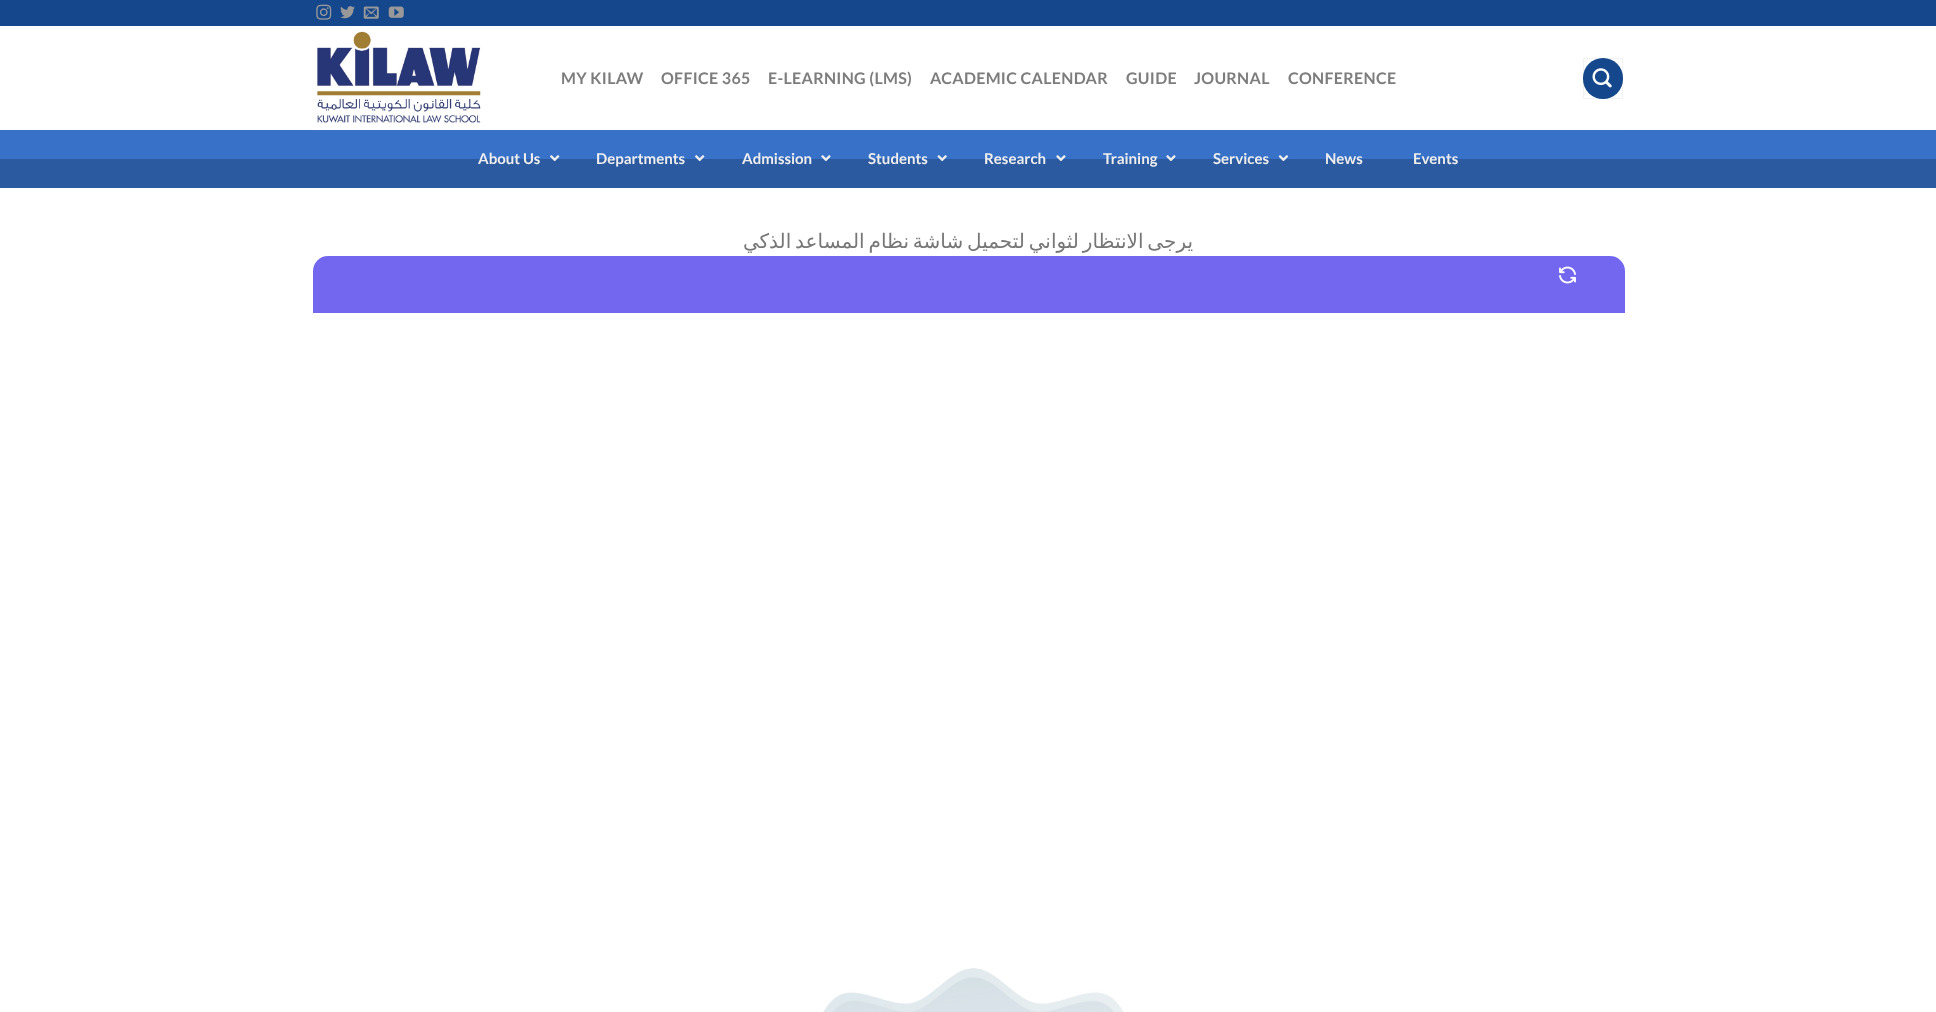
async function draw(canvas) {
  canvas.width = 1936
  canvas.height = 1012
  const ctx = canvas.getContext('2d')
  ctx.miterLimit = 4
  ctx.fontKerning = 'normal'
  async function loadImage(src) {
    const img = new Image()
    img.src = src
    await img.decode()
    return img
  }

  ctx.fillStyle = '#fff'
  ctx.fillRect(0, 0, 1936, 1012)
  ctx.fillStyle = '#14478c'
  ctx.fillRect(0, 0, 1936, 26)
  ctx.drawImage(await loadImage('image0.png'), 316, 4, 16, 16)
  ctx.drawImage(await loadImage('image1.png'), 340, 6, 15, 13)
  ctx.drawImage(await loadImage('image2.png'), 363, 6, 16, 13)
  ctx.drawImage(await loadImage('image3.png'), 388, 6, 16, 12)
  ctx.drawImage(await loadImage('image4.png'), 317, 31, 164, 92)
  ctx.letterSpacing = '0.3px'
  ctx.font = 'bold 16px Lato'
  ctx.fillStyle = '#7d7d7d'
  ctx.fillText('MY KILAW', 561, 84)
  ctx.fillText('OFFICE 365', 661, 84)
  ctx.fillText('E-LEARNING (LMS)', 768, 84)
  ctx.fillText('ACADEMIC CALENDAR', 930, 84)
  ctx.fillText('GUIDE', 1126, 84)
  ctx.fillText('JOURNAL', 1194, 84)
  ctx.fillText('CONFERENCE', 1288, 84)
  ctx.fillStyle = '#14478c'
  ctx.beginPath()
  ctx.roundRect(1583, 58, 40, 41, 20)
  ctx.fill()
  ctx.strokeStyle = '#0000000d'
  ctx.strokeRect(1583.5, 58.5, 39, 40)
  ctx.drawImage(await loadImage('image5.png'), 1592, 68, 20, 20)
  ctx.fillStyle = '#3771c8'
  ctx.fillRect(0, 130, 1936, 29)
  ctx.fillStyle = '#3d72c0'
  ctx.fillRect(313, 130, 1312, 1)
  ctx.fillStyle = '#2c5aa0'
  ctx.fillRect(0, 159, 1936, 29)
  ctx.letterSpacing = '0px'
  ctx.font = 'bold 15px Lato'
  ctx.fillStyle = '#eee'
  ctx.fillText('About Us', 478, 164)
  ctx.drawImage(await loadImage('image6.png'), 550, 155, 10, 7)
  ctx.fillText('Departments', 596, 164)
  ctx.drawImage(await loadImage('image6.png'), 695, 155, 10, 7)
  ctx.fillText('Admission', 742, 164)
  ctx.drawImage(await loadImage('image7.png'), 821, 155, 10, 7)
  ctx.fillText('Students', 868, 164)
  ctx.drawImage(await loadImage('image8.png'), 937, 155, 10, 7)
  ctx.fillText('Research', 984, 164)
  ctx.drawImage(await loadImage('image7.png'), 1056, 155, 10, 7)
  ctx.fillText('Training', 1103, 164)
  ctx.drawImage(await loadImage('image7.png'), 1166, 155, 10, 7)
  ctx.fillText('Services', 1213, 164)
  ctx.drawImage(await loadImage('image9.png'), 1278, 155, 11, 7)
  ctx.fillText('News', 1325, 164)
  ctx.fillText('Events', 1413, 164)
  ctx.wordSpacing = '-2.5px'
  ctx.direction = 'rtl'
  ctx.font = '20px DejaVu Sans'
  ctx.fillStyle = '#777'
  ctx.fillText('يرجى الانتظار لثواني لتحميل شاشة نظام المساعد الذكي', 1193, 248)
  ctx.fillStyle = '#7367f0'
  ctx.beginPath()
  ctx.roundRect(313, 256, 1312, 57, [15, 15, 0, 0])
  ctx.fill()
  ctx.drawImage(await loadImage('image10.png'), 1559, 266, 17, 18)
  ctx.drawImage(await loadImage('image11.png'), 823, 968, 301, 44)
}

draw(document.querySelector('canvas'))
